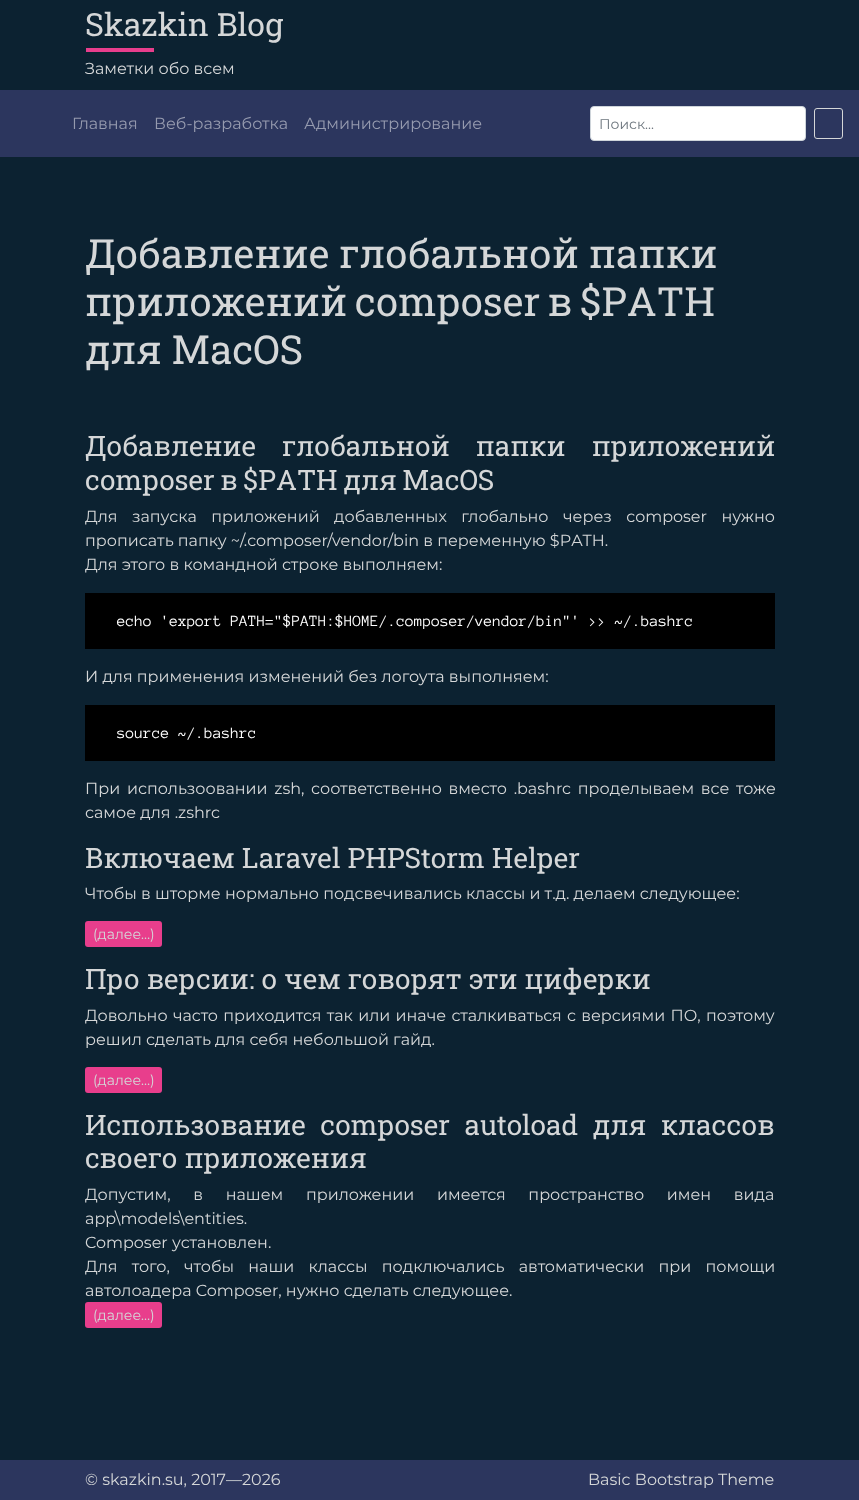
async function draw(canvas) {
  canvas.width = 859
  canvas.height = 1500
  const ctx = canvas.getContext('2d')
  ctx.miterLimit = 4
  ctx.fontKerning = 'normal'

  ctx.fillStyle = '#0c2231'
  ctx.fillRect(0, 0, 859, 1500)
  ctx.font = '32px Roboto Slab'
  ctx.fillStyle = '#d5d7d8'
  ctx.fillText('Skazkin Blog', 85, 36)
  ctx.fillStyle = '#e83e8c'
  ctx.fillRect(86, 48, 68, 4)
  ctx.font = '16px Montserrat'
  ctx.fillStyle = '#d5d7d8'
  ctx.fillText('Заметки обо всем', 85, 74)
  ctx.fillStyle = '#2c365e'
  ctx.fillRect(0, 90, 859, 67)
  ctx.fillStyle = '#969baf'
  ctx.fillText('Главная', 72, 129)
  ctx.fillText('Веб-разработка', 154, 129)
  ctx.fillText('Администрирование', 304, 129)
  ctx.fillStyle = '#fff'
  ctx.beginPath()
  ctx.roundRect(590.5, 106.5, 215, 34, 3.5)
  ctx.fill()
  ctx.strokeStyle = '#ced4da'
  ctx.stroke()
  ctx.font = '14px Montserrat'
  ctx.fillStyle = '#6c757d'
  ctx.fillText('Поиск...', 599, 129)
  ctx.beginPath()
  ctx.roundRect(814.5, 108.5, 28, 30, 2.5)
  ctx.strokeStyle = '#d5d7d8'
  ctx.stroke()
  ctx.font = '40px Roboto Slab'
  ctx.fillStyle = '#d5d7d8'
  ctx.fillText('Добавление глобальной папки', 85, 268)
  ctx.wordSpacing = '-2.5px'
  ctx.fillText('приложений composer в $PATH', 85, 316)
  ctx.wordSpacing = '0px'
  ctx.fillText('для MacOS', 85, 364)
  ctx.wordSpacing = '19px'
  ctx.font = '28px Roboto Slab'
  ctx.fillText('Добавление глобальной папки приложений', 85, 456)
  ctx.wordSpacing = '-1.5px'
  ctx.fillText('composer в $PATH для MacOS', 85, 490)
  ctx.wordSpacing = '10.25px'
  ctx.font = '16px Montserrat'
  ctx.fillText('Для запуска приложений добавленных глобально через composer нужно', 85, 522)
  ctx.wordSpacing = '0px'
  ctx.fillText('прописать папку ~/.composer/vendor/bin в переменную $PATH.', 85, 546)
  ctx.fillText('Для этого в командной строке выполняем:', 85, 570)
  ctx.fillStyle = '#000'
  ctx.fillRect(85, 593, 690, 56)
  ctx.font = '16px Anonymous Pro'
  ctx.fillStyle = '#fff'
  ctx.fillText('echo \'export PATH="$PATH:$HOME/.composer/vendor/bin"\' >> ~/.bashrc', 117, 626)
  ctx.font = '16px Montserrat'
  ctx.fillStyle = '#d5d7d8'
  ctx.fillText('И для применения изменений без логоута выполняем:', 85, 682)
  ctx.fillStyle = '#000'
  ctx.fillRect(85, 705, 690, 56)
  ctx.font = '16px Anonymous Pro'
  ctx.fillStyle = '#fff'
  ctx.fillText('source ~/.bashrc', 117, 738)
  ctx.wordSpacing = '2.5px'
  ctx.font = '16px Montserrat'
  ctx.fillStyle = '#d5d7d8'
  ctx.fillText('При использоовании zsh, соответственно вместо .bashrc проделываем все тоже', 85, 794)
  ctx.wordSpacing = '0px'
  ctx.fillText('самое для .zshrc', 85, 818)
  ctx.font = '28px Roboto Slab'
  ctx.fillText('Включаем Laravel PHPStorm Helper', 85, 868)
  ctx.font = '16px Montserrat'
  ctx.fillText('Чтобы в шторме нормально подсвечивались классы и т.д. делаем следующее:', 85, 899)
  ctx.fillStyle = '#e83e8c'
  ctx.beginPath()
  ctx.roundRect(85, 921, 77, 26, 3)
  ctx.fill()
  ctx.font = '14px Montserrat'
  ctx.fillStyle = '#d5d7d8'
  ctx.fillText('(далее…)', 93, 939)
  ctx.font = '28px Roboto Slab'
  ctx.fillText('Про версии: о чем говорят эти циферки', 85, 989)
  ctx.wordSpacing = '1.1px'
  ctx.font = '16px Montserrat'
  ctx.fillText('Довольно часто приходится так или иначе сталкиваться с версиями ПО, поэтому', 85, 1021)
  ctx.wordSpacing = '0px'
  ctx.fillText('решил сделать для себя небольшой гайд.', 85, 1045)
  ctx.fillStyle = '#e83e8c'
  ctx.beginPath()
  ctx.roundRect(85, 1067, 77, 26, 3)
  ctx.fill()
  ctx.font = '14px Montserrat'
  ctx.fillStyle = '#d5d7d8'
  ctx.fillText('(далее…)', 93, 1085)
  ctx.wordSpacing = '7.5px'
  ctx.font = '28px Roboto Slab'
  ctx.fillText('Использование composer autoload для классов', 85, 1135)
  ctx.wordSpacing = '0px'
  ctx.fillText('своего приложения', 85, 1168)
  ctx.wordSpacing = '18.5px'
  ctx.font = '16px Montserrat'
  ctx.fillText('Допустим, в нашем приложении имеется пространство имен вида', 85, 1200)
  ctx.wordSpacing = '0px'
  ctx.fillText('app\\models\\entities.', 85, 1224)
  ctx.fillText('Composer установлен.', 85, 1248)
  ctx.wordSpacing = '10px'
  ctx.fillText('Для того, чтобы наши классы подключались автоматически при помощи', 85, 1272)
  ctx.wordSpacing = '0px'
  ctx.fillText('автолоадера Composer, нужно сделать следующее.', 85, 1296)
  ctx.fillStyle = '#e83e8c'
  ctx.beginPath()
  ctx.roundRect(85, 1302, 77, 26, 3)
  ctx.fill()
  ctx.font = '14px Montserrat'
  ctx.fillStyle = '#d5d7d8'
  ctx.fillText('(далее…)', 93, 1320)
  ctx.fillStyle = '#2c365e'
  ctx.fillRect(0, 1460, 859, 40)
  ctx.font = '16px Montserrat'
  ctx.fillStyle = '#d5d7d8'
  ctx.fillText('© skazkin.su, 2017—2026', 85, 1485)
  ctx.fillText('Basic Bootstrap Theme', 588, 1485)
}

draw(document.querySelector('canvas'))
